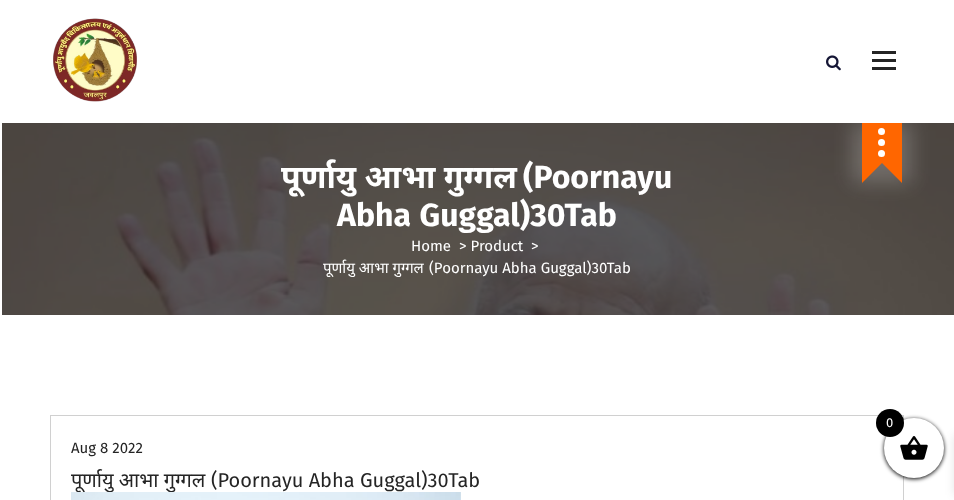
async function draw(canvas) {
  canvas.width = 954
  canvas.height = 500
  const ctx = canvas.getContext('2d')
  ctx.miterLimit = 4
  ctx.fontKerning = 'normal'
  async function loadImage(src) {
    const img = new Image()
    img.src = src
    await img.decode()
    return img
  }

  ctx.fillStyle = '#fff'
  ctx.fillRect(0, 0, 954, 500)
  ctx.drawImage(await loadImage('image0.png'), 53, 18, 84, 84)
  ctx.drawImage(await loadImage('image1.png'), 826, 55, 15, 16)
  ctx.fillStyle = '#242424'
  ctx.fillRect(872, 51, 24, 3)
  ctx.fillRect(872, 59, 24, 3)
  ctx.fillRect(872, 67, 24, 3)
  ctx.drawImage(await loadImage('image2.png'), 2, 123, 952, 192)
  ctx.fillStyle = '#ffffff33'
  ctx.filter = 'blur(10px)'
  ctx.beginPath()
  ctx.rect(852, 123, 60, 60)
  ctx.fill()
  ctx.filter = 'none'
  ctx.fillStyle = '#f60'
  ctx.fillRect(862, 123, 40, 40)
  ctx.beginPath()
  ctx.moveTo(902, 143)
  ctx.lineTo(902, 183)
  ctx.lineTo(882, 163)
  ctx.closePath()
  ctx.moveTo(862, 183)
  ctx.lineTo(862, 143)
  ctx.lineTo(882, 163)
  ctx.closePath()
  ctx.fill()
  ctx.fillStyle = '#fff'
  ctx.beginPath()
  ctx.arc(881.5, 142.5, 3.5, 0, 2 * Math.PI)
  ctx.fill()
  ctx.beginPath()
  ctx.arc(881.5, 131.5, 3.5, 0, 2 * Math.PI)
  ctx.fill()
  ctx.beginPath()
  ctx.arc(881.5, 153.5, 3.5, 0, 2 * Math.PI)
  ctx.fill()
  ctx.font = 'bold 32px Noto Sans'
  ctx.fillText('पूर्णायु आभा गुग्गल', 281, 188)
  ctx.font = 'bold 32px Fira Sans'
  ctx.fillText('(Poornayu', 523, 188)
  ctx.wordSpacing = '1px'
  ctx.fillText('Abha Guggal)30Tab', 337, 226)
  ctx.wordSpacing = '0px'
  ctx.font = '15px Fira Sans'
  ctx.fillText('Home', 411, 251)
  ctx.fillText('> Product', 459, 251)
  ctx.fillText('>', 531, 251)
  ctx.font = '15px Noto Sans'
  ctx.fillText('पूर्णायु आभा गुग्गल', 323, 273)
  ctx.font = '15px Fira Sans'
  ctx.fillText('(Poornayu Abha Guggal)30Tab', 429, 273)
  ctx.strokeStyle = '#d0d0d0'
  ctx.strokeRect(50.5, 415.5, 853, 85)
  ctx.fillStyle = '#242424'
  ctx.fillText('Aug 8 2022', 71, 453)
  ctx.font = '20px Noto Sans'
  ctx.fillText('पूर्णायु आभा गुग्गल', 71, 487)
  ctx.font = '20px Fira Sans'
  ctx.fillText('(Poornayu Abha Guggal)30Tab', 211, 487)
  ctx.drawImage(await loadImage('image3.png'), 71, 492, 390, 8)
  ctx.fillStyle = '#000'
  ctx.filter = 'blur(2px)'
  ctx.beginPath()
  ctx.roundRect(884, 419, 60, 60, 30)
  ctx.fill()
  ctx.filter = 'none'
  ctx.fillStyle = '#0000001a'
  ctx.filter = 'blur(5px)'
  ctx.beginPath()
  ctx.rect(954, 435, 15, 60)
  ctx.fill()
  ctx.filter = 'none'
  ctx.fillStyle = '#fff'
  ctx.beginPath()
  ctx.arc(914, 448, 30, 0, 2 * Math.PI)
  ctx.fill()
  ctx.drawImage(await loadImage('image4.png'), 900, 436, 28, 24)
  ctx.fillStyle = '#000'
  ctx.beginPath()
  ctx.arc(890, 423, 14, 0, 2 * Math.PI)
  ctx.fill()
  ctx.font = '13px Fira Sans'
  ctx.fillStyle = '#fff'
  ctx.fillText('0', 886, 427)
}

draw(document.querySelector('canvas'))
